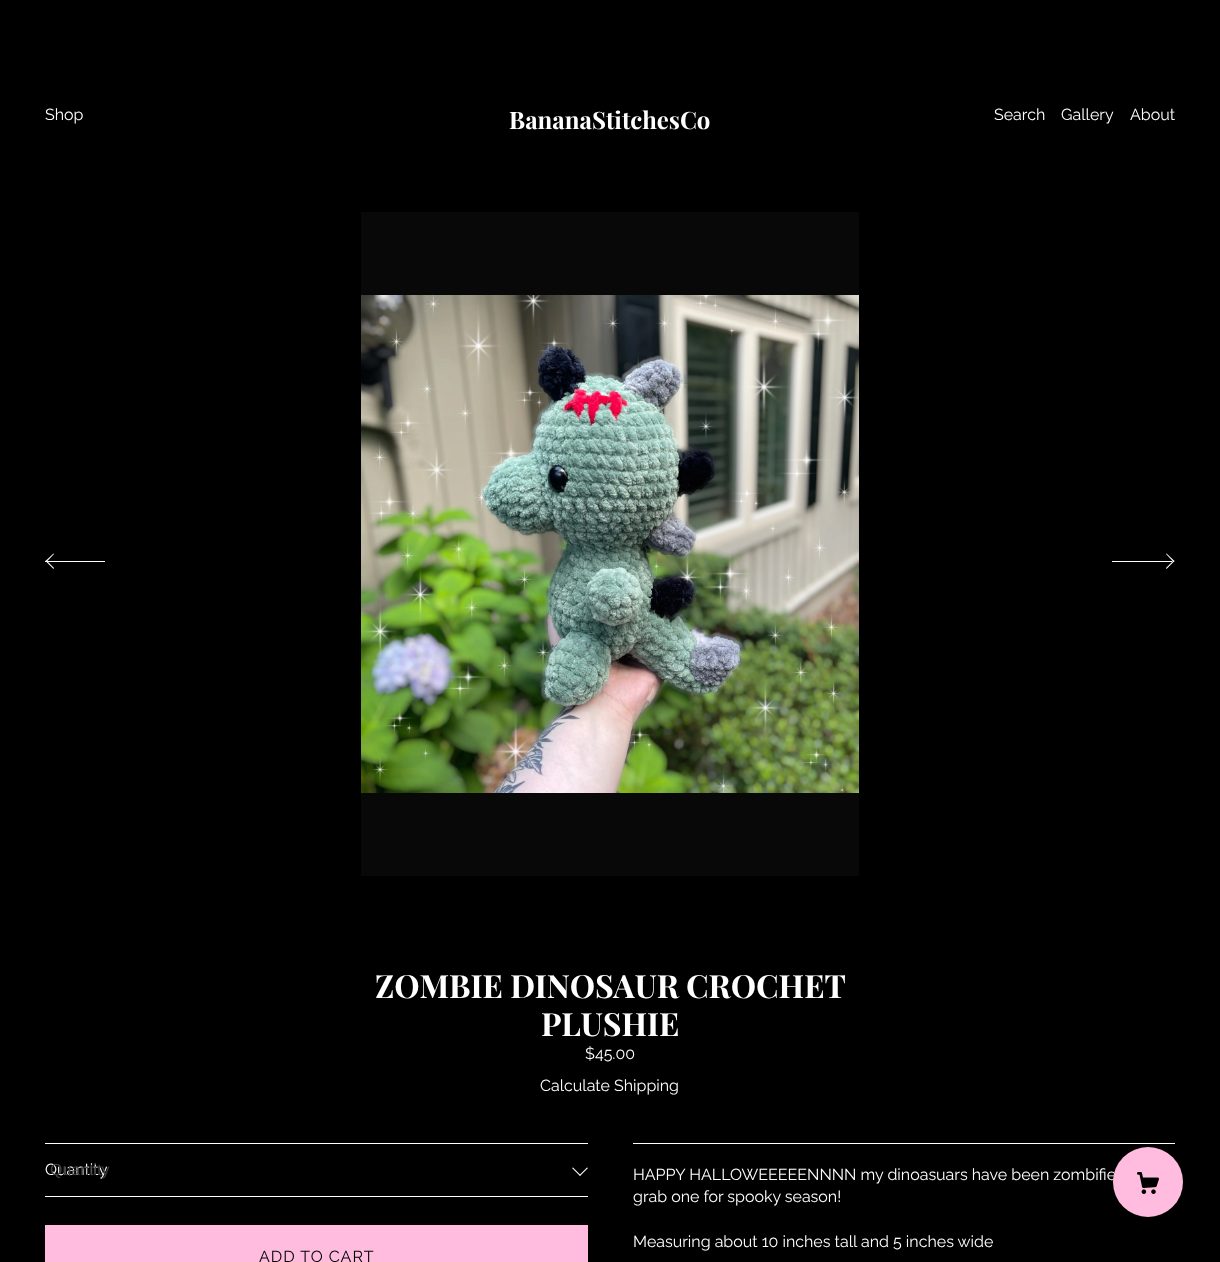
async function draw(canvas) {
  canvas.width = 1220
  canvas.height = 1262
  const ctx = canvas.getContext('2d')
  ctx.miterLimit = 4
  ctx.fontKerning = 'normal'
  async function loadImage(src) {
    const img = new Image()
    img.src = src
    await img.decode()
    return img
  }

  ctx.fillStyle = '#000'
  ctx.fillRect(0, 0, 1220, 1262)
  ctx.font = '16px Raleway'
  ctx.fillStyle = '#fff'
  ctx.fillText('Shop', 45, 120)
  ctx.fillText('Search', 994, 120)
  ctx.fillText('Gallery', 1061, 120)
  ctx.fillText('About', 1130, 120)
  ctx.font = 'bold 24px Playfair Display'
  ctx.fillText('BananaStitchesCo', 509, 129)
  ctx.fillStyle = '#080808'
  ctx.fillRect(361, 212, 498, 664)
  ctx.drawImage(await loadImage('image0.png'), 361, 295, 498, 498)
  ctx.fillStyle = '#fff'
  ctx.beginPath()
  ctx.moveTo(54, 568)
  ctx.lineTo(53.5, 569)
  ctx.lineTo(45.5, 561)
  ctx.lineTo(46.5, 560.5)
  ctx.closePath()
  ctx.fill()
  ctx.beginPath()
  ctx.moveTo(54, 554)
  ctx.lineTo(46.5, 562)
  ctx.lineTo(45.5, 561)
  ctx.lineTo(53.5, 553.5)
  ctx.closePath()
  ctx.fill()
  ctx.fillRect(45, 561, 60, 1)
  ctx.beginPath()
  ctx.moveTo(1166, 554)
  ctx.lineTo(1166.5, 553.5)
  ctx.lineTo(1174.5, 561)
  ctx.lineTo(1173.5, 562)
  ctx.closePath()
  ctx.fill()
  ctx.beginPath()
  ctx.moveTo(1166, 568)
  ctx.lineTo(1173.5, 560.5)
  ctx.lineTo(1174.5, 561)
  ctx.lineTo(1166.5, 569)
  ctx.closePath()
  ctx.fill()
  ctx.fillRect(1112, 561, 60, 1)
  ctx.font = 'bold 32px Playfair Display'
  ctx.fillText('ZOMBIE DINOSAUR CROCHET', 375, 998)
  ctx.fillText('PLUSHIE', 541, 1036)
  ctx.font = '16px Raleway'
  ctx.fillText('$45.00', 585, 1059)
  ctx.fillText('Calculate Shipping', 540, 1091)
  ctx.fillRect(45, 1143, 543, 1)
  ctx.fillRect(45, 1196, 543, 1)
  ctx.fillText('Quantity', 45, 1175)
  ctx.font = '16px Liberation Sans'
  ctx.fillStyle = '#3f3f3f'
  ctx.fillText('Quantity', 50, 1175)
  ctx.fillStyle = '#fff'
  ctx.beginPath()
  ctx.moveTo(587, 1167.5)
  ctx.lineTo(588, 1168)
  ctx.lineTo(580, 1176)
  ctx.lineTo(579.5, 1175)
  ctx.closePath()
  ctx.fill()
  ctx.beginPath()
  ctx.moveTo(573, 1167.5)
  ctx.lineTo(580.5, 1175)
  ctx.lineTo(580, 1176)
  ctx.lineTo(572, 1168)
  ctx.closePath()
  ctx.fill()
  ctx.fillStyle = '#ffbcde'
  ctx.fillRect(45, 1225, 543, 37)
  ctx.letterSpacing = '1px'
  ctx.font = '16px Raleway'
  ctx.fillStyle = '#000'
  ctx.fillText('ADD TO CART', 259, 1262)
  ctx.fillStyle = '#fff'
  ctx.fillRect(633, 1143, 542, 1)
  ctx.letterSpacing = '0px'
  ctx.fillText('HAPPY HALLOWEEEEENNNN my dinoasuars have been zombifie', 633, 1180)
  ctx.fillText('grab one for spooky season!', 633, 1202)
  ctx.fillText('Measuring about 10 inches tall and 5 inches wide', 633, 1247)
  ctx.fillStyle = '#00000033'
  ctx.filter = 'blur(2px)'
  ctx.beginPath()
  ctx.roundRect(1113, 1149, 70, 70, 35)
  ctx.fill()
  ctx.filter = 'none'
  ctx.fillStyle = '#ffbcde'
  ctx.beginPath()
  ctx.arc(1148, 1182, 35, 0, 2 * Math.PI)
  ctx.fill()
  ctx.drawImage(await loadImage('image1.png'), 1137, 1172, 22, 22)
}

draw(document.querySelector('canvas'))
